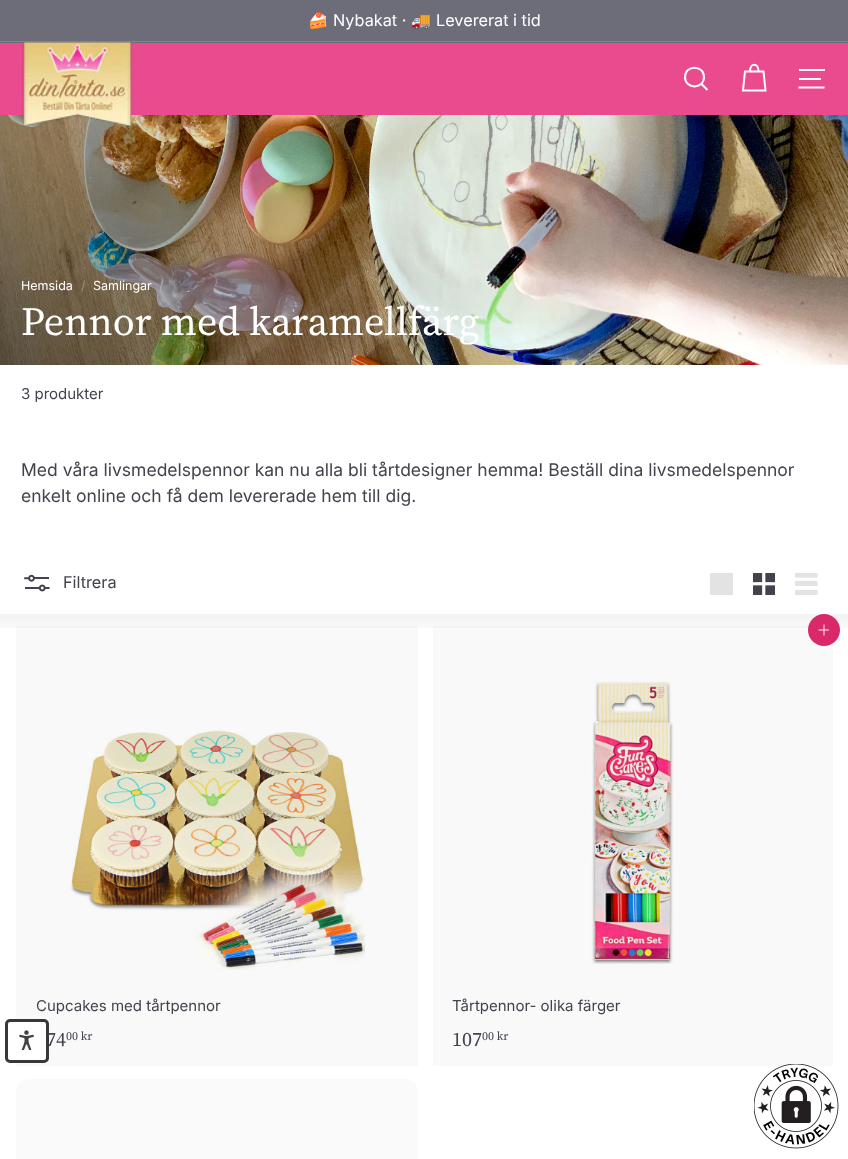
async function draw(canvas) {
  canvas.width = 848
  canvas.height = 1159
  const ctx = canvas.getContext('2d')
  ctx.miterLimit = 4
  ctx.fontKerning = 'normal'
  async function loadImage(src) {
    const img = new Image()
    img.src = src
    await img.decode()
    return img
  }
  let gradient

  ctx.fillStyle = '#fff'
  ctx.fillRect(0, 0, 848, 1159)
  ctx.fillStyle = '#6d6d7a'
  ctx.fillRect(0, 0, 848, 43)
  ctx.font = '16.25px Noto Color Emoji'
  ctx.fillStyle = '#fff'
  ctx.fillText('🍰', 308, 26)
  ctx.font = '16.25px Inter'
  ctx.fillText('Nybakat ·', 333, 26)
  ctx.font = '16.25px Noto Color Emoji'
  ctx.fillText('🚚', 411, 26)
  ctx.font = '16.25px Inter'
  ctx.fillText('Levererat i tid', 436, 26)
  ctx.fillStyle = '#83838e'
  ctx.fillRect(0, 41, 848, 1)
  ctx.fillStyle = '#ea4a8e'
  ctx.fillRect(0, 43, 848, 72)
  ctx.drawImage(await loadImage('image1.png'), 0, 115, 848, 250)
  ctx.drawImage(await loadImage('image0.png'), 22, 42, 111, 85)
  ctx.beginPath()
  ctx.moveTo(704, 77)
  ctx.bezierCurveTo(704, 89.5, 685, 89.5, 685, 77)
  ctx.bezierCurveTo(685, 64.5, 704, 64.5, 704, 77)
  ctx.moveTo(707.5, 90)
  ctx.lineTo(701.5, 84)
  ctx.strokeStyle = '#fff'
  ctx.lineWidth = 2
  ctx.stroke()
  ctx.beginPath()
  ctx.moveTo(750, 71.5)
  ctx.bezierCurveTo(750, 62.5, 758.5, 62.5, 758.5, 71.5)
  ctx.moveTo(745, 71.5)
  ctx.lineTo(763.5, 71.5)
  ctx.lineTo(765.5, 90.5)
  ctx.lineTo(743, 90.5)
  ctx.closePath()
  ctx.stroke()
  ctx.fillStyle = '#fff'
  ctx.fillRect(799, 69, 26, 2)
  ctx.fillRect(799, 78, 22, 2)
  ctx.beginPath()
  ctx.moveTo(798.5, 87.5)
  ctx.lineTo(824.5, 87.5)
  ctx.stroke()
  ctx.font = '12.5px Inter'
  ctx.fillText('Hemsida', 21, 290)
  ctx.fillStyle = '#9b8f7d'
  ctx.fillText('/', 81, 290)
  ctx.fillStyle = '#fff'
  ctx.fillText('Samlingar', 93, 290)
  ctx.fillStyle = '#b3afb4'
  ctx.fillText('/', 159, 290)
  ctx.font = '40px "Source Serif 4"'
  ctx.fillStyle = '#fff'
  ctx.fillText('Pennor med karamellfärg', 21, 335)
  ctx.font = '15px Inter'
  ctx.fillStyle = '#42434d'
  ctx.fillText('3 produkter', 21, 399)
  ctx.font = '17.5px Inter'
  ctx.fillText('Med våra livsmedelspennor kan nu alla bli tårtdesigner hemma! Beställ dina livsmedelspennor', 21, 476)
  ctx.fillText('enkelt online och få dem levererade hem till dig.', 21, 502)
  ctx.drawImage(await loadImage('image2.png'), 24, 574, 26, 18)
  ctx.font = '16.25px Inter'
  ctx.fillText('Filtrera', 63, 588)
  ctx.fillStyle = '#e3e3e4'
  ctx.fillRect(710, 573, 23, 22)
  ctx.drawImage(await loadImage('image3.png'), 753, 573, 22, 22)
  ctx.drawImage(await loadImage('image4.png'), 795, 573, 23, 22)
  ctx.drawImage(await loadImage('image5.png'), 70, 729, 295, 241)
  ctx.fillStyle = '#42434d08'
  ctx.fillRect(16, 626, 402, 440)
  ctx.drawImage(await loadImage('image6.png'), 591, 679, 83, 285)
  ctx.fillRect(433, 626, 400, 440)
  gradient = ctx.createLinearGradient(424, 614, 424, 639)
  gradient.addColorStop(0, '#0000000d')
  gradient.addColorStop(1, '#00000000')
  ctx.fillStyle = gradient
  ctx.fillRect(0, 614, 848, 14)
  ctx.font = '15px Inter'
  ctx.fillStyle = '#42434d'
  ctx.fillText('Cupcakes med tårtpennor', 36, 1011)
  ctx.font = '20px "Source Serif 4"'
  ctx.fillText('74', 46, 1046)
  ctx.font = '12px "Source Serif 4"'
  ctx.fillText('00 kr', 66, 1040)
  ctx.fillStyle = '#d9296b'
  ctx.beginPath()
  ctx.arc(824, 630, 16, 0, 2 * Math.PI)
  ctx.fill()
  ctx.beginPath()
  ctx.moveTo(824, 624.5)
  ctx.lineTo(824, 635.5)
  ctx.moveTo(829, 630)
  ctx.lineTo(818.5, 630)
  ctx.lineWidth = 0.9
  ctx.stroke()
  ctx.font = '15px Inter'
  ctx.fillStyle = '#42434d'
  ctx.fillText('Tårtpennor- olika färger', 452, 1011)
  ctx.font = '20px "Source Serif 4"'
  ctx.fillText('107', 452, 1046)
  ctx.font = '12px "Source Serif 4"'
  ctx.fillText('00 kr', 482, 1040)
  ctx.fillStyle = '#fafafa'
  ctx.beginPath()
  ctx.roundRect(16, 1079, 402, 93, 13)
  ctx.fill()
  ctx.fillStyle = '#fff'
  ctx.beginPath()
  ctx.roundRect(6.5, 1020.5, 41, 41, 3.5)
  ctx.fill()
  ctx.strokeStyle = '#383838'
  ctx.lineWidth = 3
  ctx.stroke()
  ctx.drawImage(await loadImage('image7.png'), 19, 1030, 15, 20)
  ctx.beginPath()
  ctx.arc(796.5, 1106.5, 42.5, 0, 2 * Math.PI)
  ctx.fill()
  ctx.drawImage(await loadImage('image8.png'), 754, 1064, 85, 85)
}

draw(document.querySelector('canvas'))
